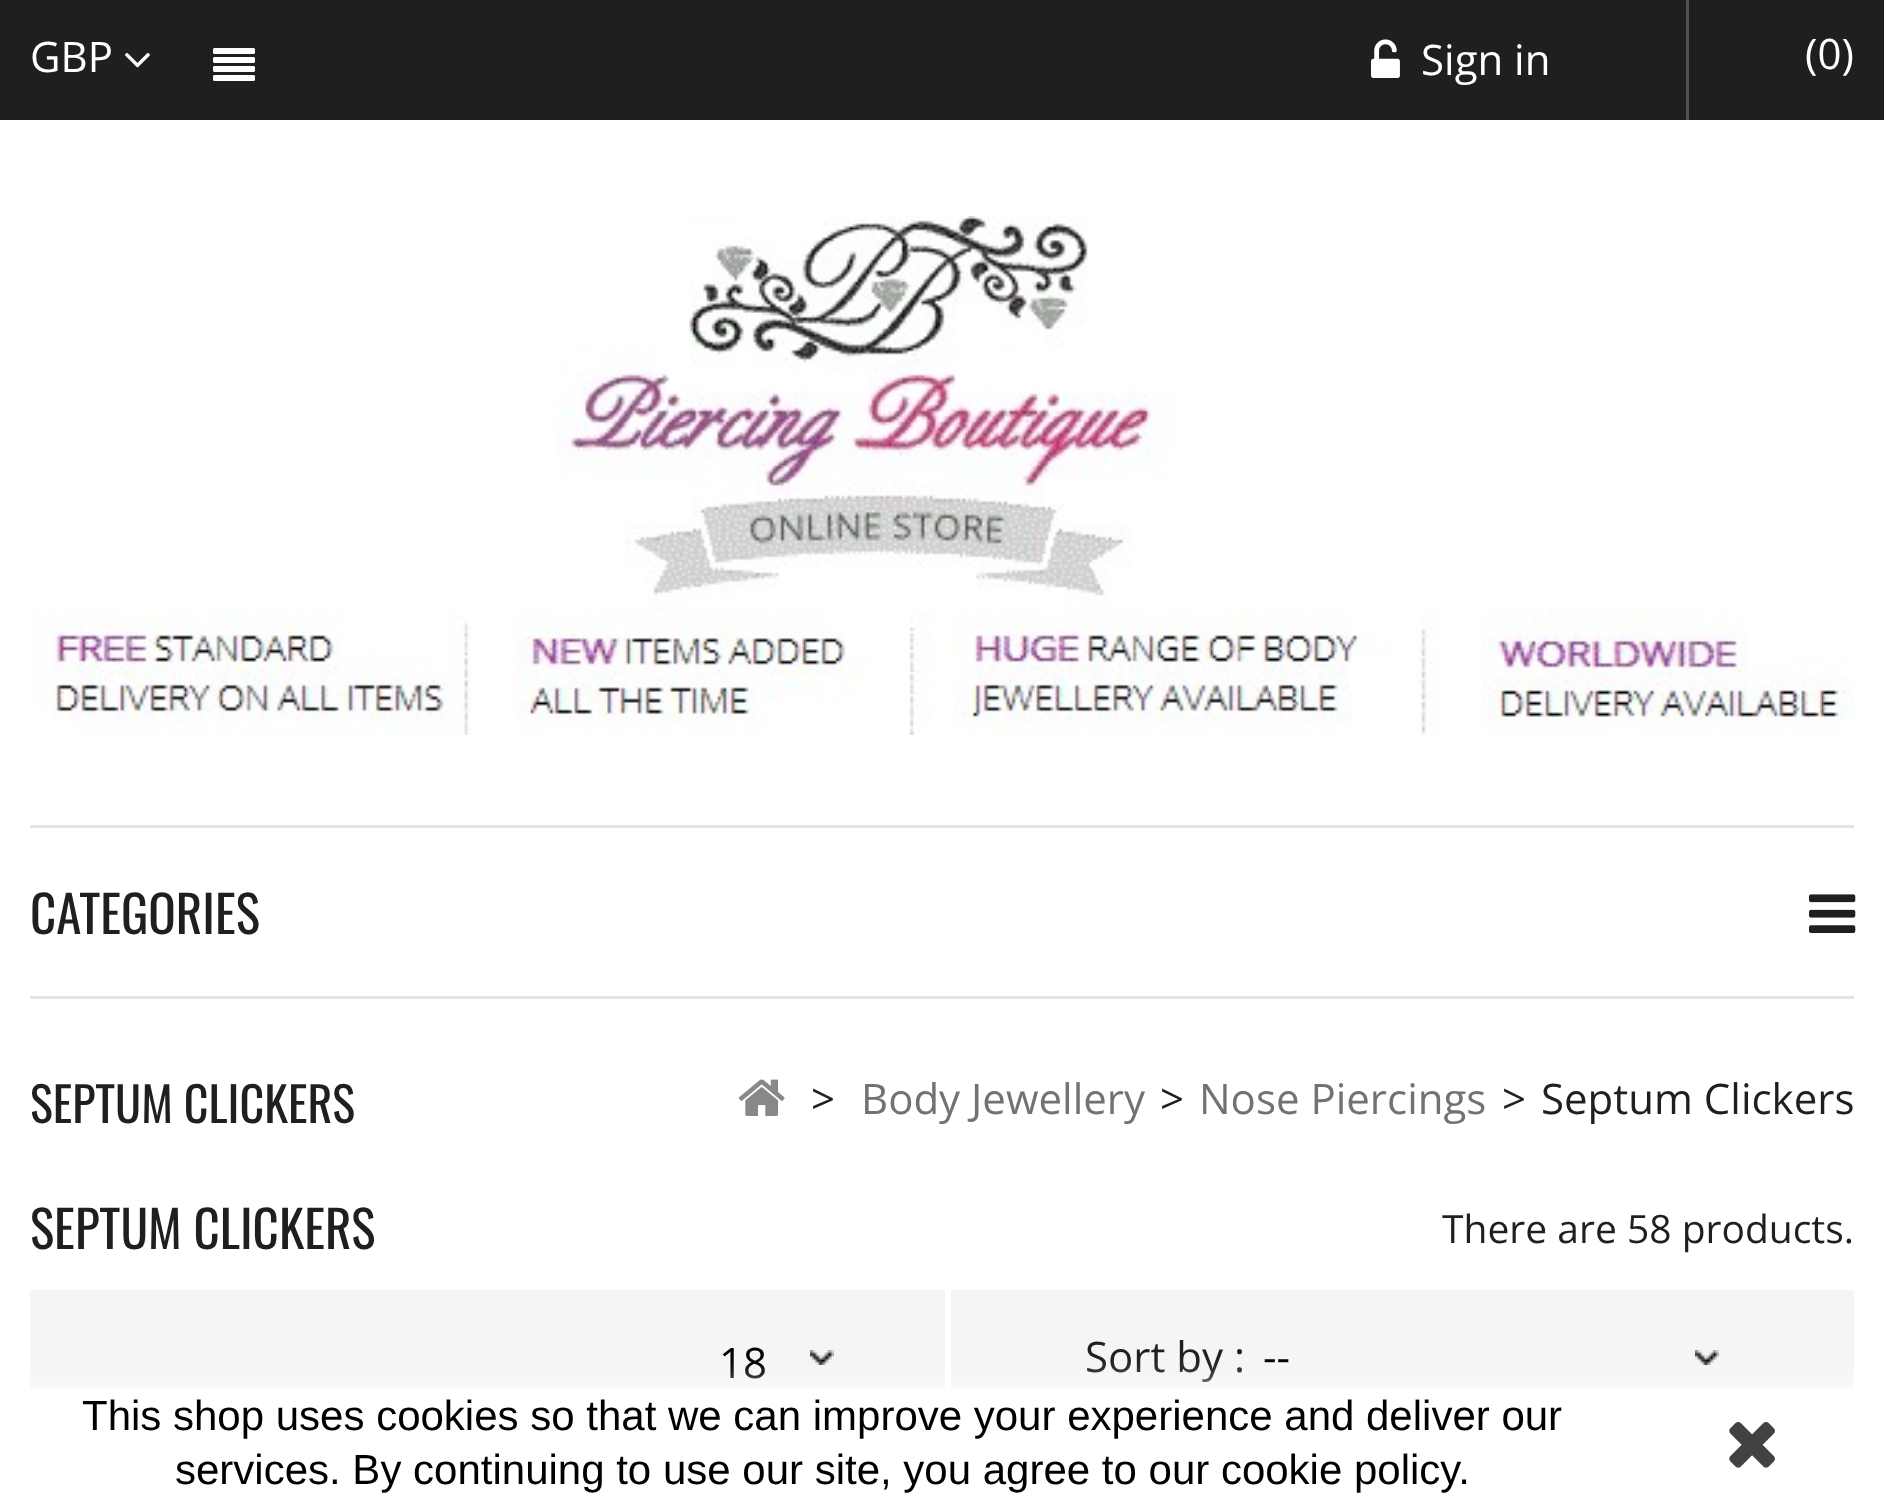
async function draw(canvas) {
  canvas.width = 1884
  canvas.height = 1497
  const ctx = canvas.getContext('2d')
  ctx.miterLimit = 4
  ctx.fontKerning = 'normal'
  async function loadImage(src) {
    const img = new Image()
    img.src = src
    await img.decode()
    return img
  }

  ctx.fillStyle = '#fff'
  ctx.fillRect(0, 0, 1884, 1497)
  ctx.fillStyle = '#1f1f1f'
  ctx.fillRect(0, 0, 1884, 120)
  ctx.font = '42px Open Sans'
  ctx.fillStyle = '#fff'
  ctx.fillText('GBP', 30, 72)
  ctx.drawImage(await loadImage('image0.png'), 125, 52, 25, 16)
  ctx.drawImage(await loadImage('image1.png'), 213, 48, 42, 33)
  ctx.drawImage(await loadImage('image2.png'), 1371, 39, 29, 39)
  ctx.fillText('Sign in', 1421, 75)
  ctx.fillStyle = '#515151'
  ctx.fillRect(1686, 0, 3, 120)
  ctx.fillStyle = '#fff'
  ctx.fillText('(0)', 1805, 69)
  ctx.drawImage(await loadImage('image3.png'), 30, 216, 1824, 519)
  ctx.fillStyle = '#e3e3e3'
  ctx.fillRect(30, 825, 1824, 3)
  ctx.fillRect(30, 996, 1824, 3)
  ctx.font = '51px Oswald'
  ctx.fillStyle = '#1f1f1f'
  ctx.fillText('CATEGORIES', 30, 934)
  ctx.drawImage(await loadImage('image4.png'), 1809, 894, 47, 39)
  ctx.font = '48px Oswald'
  ctx.fillText('SEPTUM CLICKERS', 30, 1123)
  ctx.drawImage(await loadImage('image5.png'), 738, 1079, 47, 37)
  ctx.font = '42px Open Sans'
  ctx.fillText('>', 811, 1114)
  ctx.fillStyle = '#727272'
  ctx.fillText('Body Jewellery', 861, 1114)
  ctx.fillStyle = '#1f1f1f'
  ctx.fillText('>', 1160, 1114)
  ctx.fillStyle = '#727272'
  ctx.fillText('Nose Piercings', 1199, 1114)
  ctx.fillStyle = '#1f1f1f'
  ctx.fillText('>', 1502, 1114)
  ctx.fillText('Septum Clickers', 1541, 1114)
  ctx.font = '51px Oswald'
  ctx.fillText('SEPTUM CLICKERS', 30, 1249)
  ctx.font = '39px Open Sans'
  ctx.fillText('There are 58 products.', 1442, 1243)
  ctx.fillStyle = '#f5f5f5'
  ctx.fillRect(30, 1290, 1824, 99)
  ctx.fillStyle = '#fff'
  ctx.fillRect(945, 1290, 6, 99)
  ctx.drawImage(await loadImage('image6.png'), 810, 1350, 24, 15)
  ctx.font = '42px Open Sans'
  ctx.fillStyle = '#000'
  ctx.fillText('18', 719, 1378)
  ctx.drawImage(await loadImage('image6.png'), 1695, 1350, 24, 15)
  ctx.fillStyle = '#1f1f1f'
  ctx.fillText('Sort by :', 1085, 1372)
  ctx.fillStyle = '#000'
  ctx.fillText('--', 1263, 1372)
  ctx.fillStyle = '#fff'
  ctx.filter = 'blur(15px)'
  ctx.beginPath()
  ctx.rect(0, 1389, 1884, 108)
  ctx.fill()
  ctx.filter = 'none'
  ctx.font = '42px Liberation Sans'
  ctx.fillStyle = '#000'
  ctx.fillText('This shop uses cookies so that we can improve your experience and deliver our', 82, 1430)
  ctx.fillText('services. By continuing to use our site, you agree to our cookie policy.', 175, 1484)
  ctx.drawImage(await loadImage('image7.png'), 1729, 1422, 46, 46)
}

draw(document.querySelector('canvas'))
